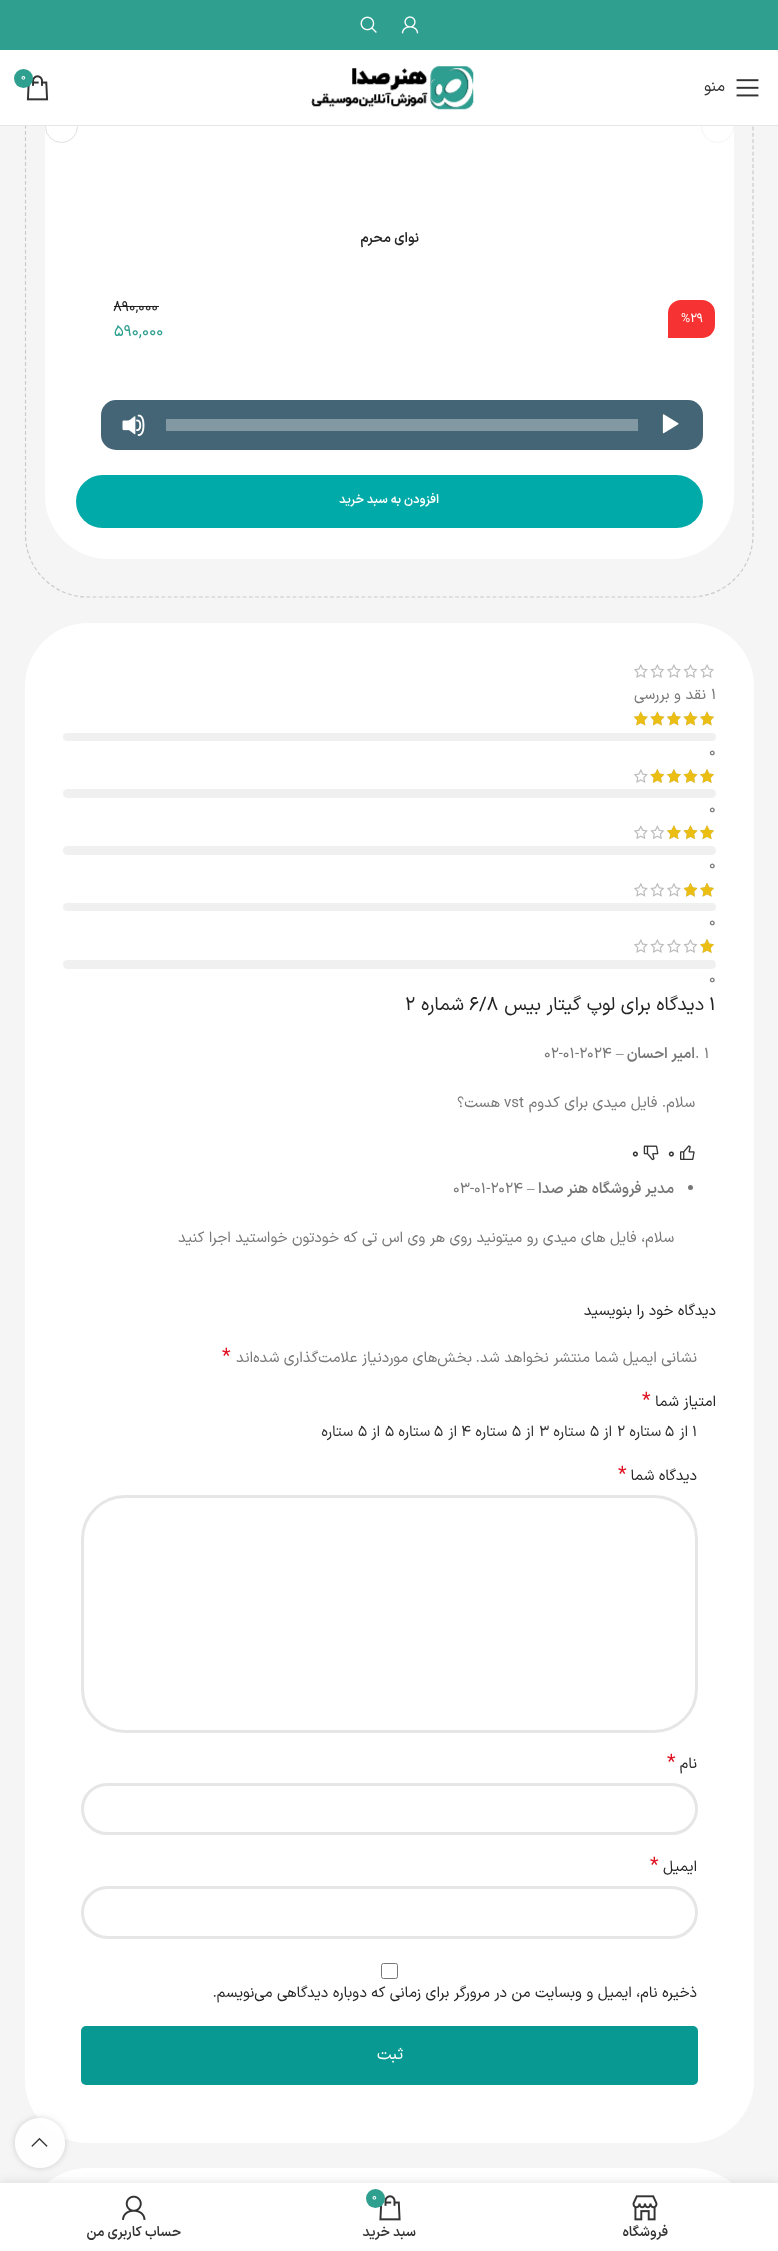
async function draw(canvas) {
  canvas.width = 778
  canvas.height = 2251
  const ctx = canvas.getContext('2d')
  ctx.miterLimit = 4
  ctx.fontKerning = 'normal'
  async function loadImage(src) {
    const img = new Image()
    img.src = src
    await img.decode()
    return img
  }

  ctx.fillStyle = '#f5f5f5'
  ctx.fillRect(0, 0, 778, 2251)
  ctx.beginPath()
  ctx.moveTo(87.5, -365.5)
  ctx.lineTo(691, -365.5)
  ctx.bezierCurveTo(725.5, -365.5, 753, -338, 753, -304)
  ctx.lineTo(753, 535)
  ctx.bezierCurveTo(753, 569, 725.5, 597, 691, 597)
  ctx.lineTo(87.5, 597)
  ctx.bezierCurveTo(53.5, 597, 25.5, 569, 25.5, 535)
  ctx.lineTo(25.5, -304)
  ctx.bezierCurveTo(25.5, -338, 53.5, -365.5, 87.5, -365.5)
  ctx.closePath()
  ctx.strokeStyle = '#cacaca'
  ctx.lineWidth = 1.2
  ctx.setLineDash([3.75, 2.5])
  ctx.stroke()
  ctx.fillStyle = '#fff'
  ctx.beginPath()
  ctx.roundRect(45, -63, 689, 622, 63)
  ctx.fill()
  ctx.fillStyle = '#2f9f90'
  ctx.fillRect(0, 0, 778, 50)
  ctx.drawImage(await loadImage('image0.png'), 401, 16, 18, 18)
  ctx.drawImage(await loadImage('image1.png'), 360, 16, 17, 17)
  ctx.beginPath()
  ctx.arc(717.5, 126.5, 16, 0, 2 * Math.PI)
  ctx.strokeStyle = '#f5f5f5'
  ctx.lineWidth = 1
  ctx.setLineDash([])
  ctx.stroke()
  ctx.beginPath()
  ctx.arc(61.5, 126.5, 16, 0, 2 * Math.PI)
  ctx.strokeStyle = '#dfdfdf'
  ctx.stroke()
  ctx.fillStyle = '#fff'
  ctx.fillRect(0, 50, 778, 75)
  ctx.fillStyle = '#e6e6e6'
  ctx.fillRect(0, 125, 778, 1)
  ctx.drawImage(await loadImage('image2.png'), 311, 66, 163, 44)
  ctx.drawImage(await loadImage('image3.png'), 26, 75, 23, 26)
  ctx.fillStyle = '#2f9f90'
  ctx.beginPath()
  ctx.arc(23.5, 78.5, 9.5, 0, 2 * Math.PI)
  ctx.fill()
  ctx.font = '11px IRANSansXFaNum'
  ctx.fillStyle = '#fff'
  ctx.fillText('0', 21, 80)
  ctx.drawImage(await loadImage('image4.png'), 736, 79, 23, 18)
  ctx.direction = 'rtl'
  ctx.font = '16px IRANSansXFaNum'
  ctx.fillStyle = '#333'
  ctx.fillText('منو', 725, 91)
  ctx.font = '600 13.75px IRANSansXFaNum'
  ctx.fillStyle = '#242424'
  ctx.fillText('نوای محرم', 419, 242)
  ctx.fillStyle = '#f73232'
  ctx.beginPath()
  ctx.roundRect(668, 300, 47, 38, [13, 13, 13, 0])
  ctx.fill()
  ctx.direction = 'ltr'
  ctx.font = '12.5px IRANSansXFaNum'
  ctx.fillStyle = '#fff'
  ctx.fillText('%29', 681, 322)
  ctx.font = '14.5px IRANSansXFaNum'
  ctx.fillStyle = '#242424'
  ctx.fillText('890,000', 113, 311)
  ctx.fillStyle = '#202020'
  ctx.fillRect(114, 306, 45, 1)
  ctx.font = '16px IRANSansXFaNum'
  ctx.fillStyle = '#2f9f90'
  ctx.fillText('590,000', 114, 336)
  ctx.fillStyle = '#446575'
  ctx.beginPath()
  ctx.roundRect(101, 400, 602, 50, 15)
  ctx.fill()
  ctx.drawImage(await loadImage('image5.png'), 662, 414, 17, 20)
  ctx.fillStyle = '#8298a3'
  ctx.fillRect(166, 419, 472, 12)
  ctx.drawImage(await loadImage('image6.png'), 122, 414, 23, 22)
  ctx.fillStyle = '#00aaa8'
  ctx.beginPath()
  ctx.roundRect(76, 475, 627, 53, 26.5)
  ctx.fill()
  ctx.direction = 'rtl'
  ctx.font = '600 12.5px IRANSansXFaNum'
  ctx.fillStyle = '#fff'
  ctx.fillText('افزودن به سبد خرید', 439, 503)
  ctx.beginPath()
  ctx.roundRect(25, 623, 729, 1520, 63)
  ctx.fill()
  ctx.drawImage(await loadImage('image7.png'), 634, 664, 80, 14)
  ctx.direction = 'ltr'
  ctx.font = '15px IRANSansXFaNum'
  ctx.fillStyle = '#777'
  ctx.fillText('1', 711, 699)
  ctx.direction = 'rtl'
  ctx.fillText('نقد و بررسی', 706, 699)
  ctx.drawImage(await loadImage('image8.png'), 634, 711, 80, 15)
  ctx.drawImage(await loadImage('image9.png'), 634, 711, 80, 15)
  ctx.fillStyle = '#f0f0f0'
  ctx.beginPath()
  ctx.roundRect(63, 733, 653, 8, 4)
  ctx.fill()
  ctx.direction = 'ltr'
  ctx.fillStyle = '#777'
  ctx.fillText('0', 709, 756)
  ctx.drawImage(await loadImage('image7.png'), 634, 769, 80, 14)
  ctx.drawImage(await loadImage('image10.png'), 650, 769, 64, 14)
  ctx.fillStyle = '#f0f0f0'
  ctx.beginPath()
  ctx.roundRect(63, 789, 653, 9, 4.5)
  ctx.fill()
  ctx.fillStyle = '#777'
  ctx.fillText('0', 709, 813)
  ctx.drawImage(await loadImage('image11.png'), 634, 825, 80, 14)
  ctx.drawImage(await loadImage('image12.png'), 667, 825, 47, 15)
  ctx.fillStyle = '#f0f0f0'
  ctx.beginPath()
  ctx.roundRect(63, 846, 653, 9, 4.5)
  ctx.fill()
  ctx.fillStyle = '#777'
  ctx.fillText('0', 709, 869)
  ctx.drawImage(await loadImage('image13.png'), 634, 882, 80, 15)
  ctx.drawImage(await loadImage('image14.png'), 684, 882, 30, 15)
  ctx.fillStyle = '#f0f0f0'
  ctx.beginPath()
  ctx.roundRect(63, 903, 653, 8, 4)
  ctx.fill()
  ctx.fillStyle = '#777'
  ctx.fillText('0', 709, 926)
  ctx.drawImage(await loadImage('image7.png'), 634, 939, 80, 14)
  ctx.drawImage(await loadImage('image15.png'), 700, 939, 14, 14)
  ctx.fillStyle = '#f0f0f0'
  ctx.beginPath()
  ctx.roundRect(63, 960, 653, 9, 4.5)
  ctx.fill()
  ctx.fillStyle = '#777'
  ctx.fillText('0', 709, 983)
  ctx.font = '18.75px IRANSansXFaNum'
  ctx.fillStyle = '#242424'
  ctx.fillText('1', 709, 1010)
  ctx.direction = 'rtl'
  ctx.fillText('دیدگاه برای', 704, 1010)
  ctx.fillText('لوپ گیتار بیس', 615, 1010)
  ctx.direction = 'ltr'
  ctx.fillText('۶/۸', 469, 1010)
  ctx.direction = 'rtl'
  ctx.fillText('شماره', 464, 1010)
  ctx.direction = 'ltr'
  ctx.fillText('2', 405, 1010)
  ctx.font = '15px IRANSansXFaNum'
  ctx.fillStyle = '#777'
  ctx.fillText('. 1', 695, 1058)
  ctx.direction = 'rtl'
  ctx.font = '600 15px IRANSansXFaNum'
  ctx.fillText('امیر احسان', 695, 1058)
  ctx.direction = 'ltr'
  ctx.font = '15px Liberation Serif'
  ctx.fillText('–', 616, 1058)
  ctx.font = '15px IRANSansXFaNum'
  ctx.fillText('02-01-2024', 544, 1058)
  ctx.direction = 'rtl'
  ctx.fillText('سلام. فایل میدی برای کدوم', 695, 1107)
  ctx.direction = 'ltr'
  ctx.fillText('vst', 504, 1107)
  ctx.direction = 'rtl'
  ctx.fillText('هست؟', 500, 1107)
  ctx.drawImage(await loadImage('image16.png'), 680, 1145, 15, 15)
  ctx.direction = 'ltr'
  ctx.font = '600 15px IRANSansXFaNum'
  ctx.fillStyle = '#333'
  ctx.fillText('0', 668, 1157)
  ctx.drawImage(await loadImage('image17.png'), 643, 1145, 16, 16)
  ctx.fillText('0', 632, 1157)
  ctx.fillStyle = '#777'
  ctx.beginPath()
  ctx.arc(690.5, 1187.5, 2.5, 0, 2 * Math.PI)
  ctx.fill()
  ctx.direction = 'rtl'
  ctx.fillText('مدیر فروشگاه', 674, 1193)
  ctx.fillText('هنر صدا', 588, 1193)
  ctx.direction = 'ltr'
  ctx.font = '15px Liberation Serif'
  ctx.fillText('–', 527, 1193)
  ctx.font = '15px IRANSansXFaNum'
  ctx.fillText('03-01-2024', 453, 1193)
  ctx.direction = 'rtl'
  ctx.fillText('سلام، فایل های میدی رو میتونید روی هر وی اس تی که خودتون خواستید اجرا کنید', 674, 1242)
  ctx.fillStyle = '#242424'
  ctx.fillText('دیدگاه خود را بنویسید', 716, 1315)
  ctx.fillStyle = '#777'
  ctx.fillText('نشانی ایمیل شما منتشر نخواهد شد.', 697, 1362)
  ctx.fillText('بخش‌های موردنیاز علامت‌گذاری شده‌اند', 472, 1362)
  ctx.direction = 'ltr'
  ctx.font = '20px IRANSansXFaNum'
  ctx.fillStyle = '#e01020'
  ctx.fillText('*', 222, 1362)
  ctx.direction = 'rtl'
  ctx.font = '15px IRANSansXFaNum'
  ctx.fillStyle = '#242424'
  ctx.fillText('امتیاز شما', 716, 1406)
  ctx.direction = 'ltr'
  ctx.font = '20px IRANSansXFaNum'
  ctx.fillStyle = '#e01020'
  ctx.fillText('*', 642, 1406)
  ctx.font = '15px IRANSansXFaNum'
  ctx.fillStyle = '#333'
  ctx.fillText('۱', 692, 1436)
  ctx.direction = 'rtl'
  ctx.fillText('از', 688, 1436)
  ctx.direction = 'ltr'
  ctx.fillText('۵', 665, 1436)
  ctx.direction = 'rtl'
  ctx.fillText('ستاره', 661, 1436)
  ctx.direction = 'ltr'
  ctx.fillText('۲', 617, 1436)
  ctx.direction = 'rtl'
  ctx.fillText('از', 612, 1436)
  ctx.direction = 'ltr'
  ctx.fillText('۵', 590, 1436)
  ctx.direction = 'rtl'
  ctx.fillText('ستاره', 585, 1436)
  ctx.direction = 'ltr'
  ctx.fillText('۳', 539, 1436)
  ctx.direction = 'rtl'
  ctx.fillText('از', 534, 1436)
  ctx.direction = 'ltr'
  ctx.fillText('۵', 512, 1436)
  ctx.direction = 'rtl'
  ctx.fillText('ستاره', 507, 1436)
  ctx.direction = 'ltr'
  ctx.fillText('۴', 461, 1436)
  ctx.direction = 'rtl'
  ctx.fillText('از', 457, 1436)
  ctx.direction = 'ltr'
  ctx.fillText('۵', 434, 1436)
  ctx.direction = 'rtl'
  ctx.fillText('ستاره', 430, 1436)
  ctx.direction = 'ltr'
  ctx.fillText('۵', 385, 1436)
  ctx.direction = 'rtl'
  ctx.fillText('از', 380, 1436)
  ctx.direction = 'ltr'
  ctx.fillText('۵', 358, 1436)
  ctx.direction = 'rtl'
  ctx.fillText('ستاره', 353, 1436)
  ctx.fillStyle = '#242424'
  ctx.fillText('دیدگاه شما', 697, 1480)
  ctx.direction = 'ltr'
  ctx.font = '20px IRANSansXFaNum'
  ctx.fillStyle = '#e01020'
  ctx.fillText('*', 618, 1480)
  ctx.beginPath()
  ctx.roundRect(82.5, 1496.5, 614, 235, 42.5)
  ctx.strokeStyle = '#e6e6e6'
  ctx.lineWidth = 3
  ctx.stroke()
  ctx.direction = 'rtl'
  ctx.font = '15px IRANSansXFaNum'
  ctx.fillStyle = '#242424'
  ctx.fillText('نام', 697, 1768)
  ctx.direction = 'ltr'
  ctx.font = '20px IRANSansXFaNum'
  ctx.fillStyle = '#e01020'
  ctx.fillText('*', 667, 1768)
  ctx.beginPath()
  ctx.roundRect(82.5, 1784.5, 614, 49, 24.5)
  ctx.stroke()
  ctx.direction = 'rtl'
  ctx.font = '15px IRANSansXFaNum'
  ctx.fillStyle = '#242424'
  ctx.fillText('ایمیل', 697, 1871)
  ctx.direction = 'ltr'
  ctx.font = '20px IRANSansXFaNum'
  ctx.fillStyle = '#e01020'
  ctx.fillText('*', 650, 1871)
  ctx.beginPath()
  ctx.roundRect(82.5, 1887.5, 614, 50, 25)
  ctx.stroke()
  ctx.beginPath()
  ctx.roundRect(381.5, 1963.5, 16, 15, 2)
  ctx.strokeStyle = '#767676'
  ctx.lineWidth = 1
  ctx.stroke()
  ctx.direction = 'rtl'
  ctx.font = '15px IRANSansXFaNum'
  ctx.fillStyle = '#242424'
  ctx.fillText('ذخیره نام، ایمیل و وبسایت من در مرورگر برای زمانی که دوباره دیدگاهی می‌نویسم.', 697, 1997)
  ctx.fillStyle = '#079992'
  ctx.beginPath()
  ctx.roundRect(81, 2026, 617, 59, 5)
  ctx.fill()
  ctx.font = '16px IRANSansXFaNum'
  ctx.fillStyle = '#fff'
  ctx.fillText('ثبت', 403, 2059)
  ctx.beginPath()
  ctx.roundRect(25, 2168, 729, 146, 63)
  ctx.fill()
  ctx.save()
  ctx.beginPath()
  ctx.moveTo(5, 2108)
  ctx.lineTo(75, 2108)
  ctx.lineTo(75, 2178)
  ctx.lineTo(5, 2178)
  ctx.closePath()
  ctx.moveTo(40, 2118)
  ctx.bezierCurveTo(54, 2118, 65, 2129, 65, 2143)
  ctx.bezierCurveTo(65, 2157, 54, 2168, 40, 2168)
  ctx.bezierCurveTo(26, 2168, 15, 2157, 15, 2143)
  ctx.bezierCurveTo(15, 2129, 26, 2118, 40, 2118)
  ctx.closePath()
  ctx.clip('evenodd')
  ctx.fillStyle = '#0000002b'
  ctx.filter = 'blur(3px)'
  ctx.beginPath()
  ctx.roundRect(15, 2118, 50, 50, 25)
  ctx.fill()
  ctx.filter = 'none'
  ctx.restore()
  ctx.fillStyle = '#ffffffe6'
  ctx.beginPath()
  ctx.arc(40, 2143, 25, 0, 2 * Math.PI)
  ctx.fill()
  ctx.drawImage(await loadImage('image18.png'), 31, 2137, 17, 10)
  ctx.fillStyle = '#0000001f'
  ctx.filter = 'blur(5.5px)'
  ctx.beginPath()
  ctx.rect(0, 2183, 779, 68)
  ctx.fill()
  ctx.filter = 'none'
  ctx.fillStyle = '#fff'
  ctx.fillRect(0, 2183, 778, 68)
  ctx.drawImage(await loadImage('image19.png'), 632, 2195, 26, 26)
  ctx.font = '600 13.75px IRANSansXFaNum'
  ctx.fillStyle = '#333'
  ctx.fillText('فروشگاه', 668, 2236)
  ctx.drawImage(await loadImage('image20.png'), 379, 2195, 22, 26)
  ctx.fillStyle = '#2f9f90'
  ctx.beginPath()
  ctx.arc(375.5, 2198.5, 9.5, 0, 2 * Math.PI)
  ctx.fill()
  ctx.direction = 'ltr'
  ctx.font = '11px IRANSansXFaNum'
  ctx.fillStyle = '#fff'
  ctx.fillText('0', 372, 2200)
  ctx.direction = 'rtl'
  ctx.font = '600 13.75px IRANSansXFaNum'
  ctx.fillStyle = '#333'
  ctx.fillText('سبد خرید', 416, 2236)
  ctx.drawImage(await loadImage('image21.png'), 122, 2195, 24, 25)
  ctx.fillText('حساب کاربری من', 181, 2236)
}

draw(document.querySelector('canvas'))
